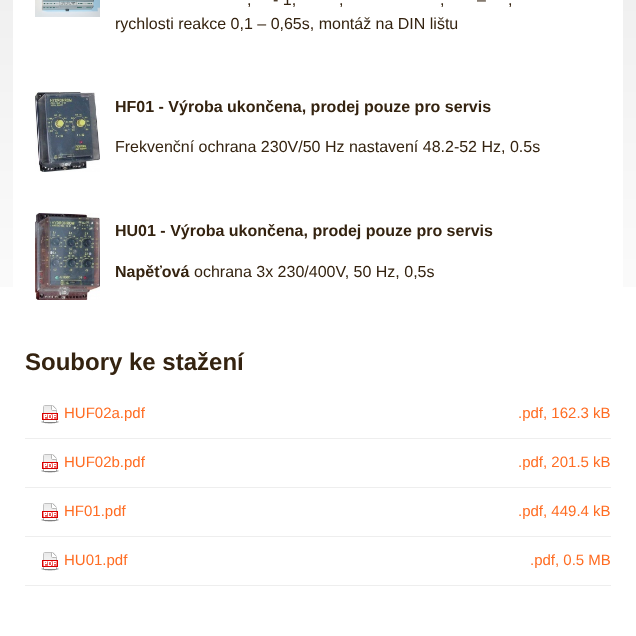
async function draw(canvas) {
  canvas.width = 636
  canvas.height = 636
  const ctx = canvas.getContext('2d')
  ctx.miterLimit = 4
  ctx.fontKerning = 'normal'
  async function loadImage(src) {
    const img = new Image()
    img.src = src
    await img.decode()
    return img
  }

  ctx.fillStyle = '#fff'
  ctx.fillRect(0, 0, 636, 636)
  ctx.drawImage(await loadImage('image0.png'), 0, 0, 636, 287)
  ctx.fillRect(13, 0, 610, 287)
  ctx.drawImage(await loadImage('image1.png'), 35, 0, 65, 17)
  ctx.font = '16px Liberation Sans'
  ctx.fillStyle = '#342310'
  ctx.fillText('- 1,', 273, 5)
  ctx.fillText('–', 477, 5)
  ctx.fillText(',', 247, 5)
  ctx.fillText(',', 339, 5)
  ctx.fillText(',', 440, 5)
  ctx.fillText(',', 508, 5)
  ctx.fillText('rychlosti reakce 0,1 – 0,65s, montáž na DIN lištu', 115, 29)
  ctx.drawImage(await loadImage('image2.png'), 35, 92, 65, 80)
  ctx.font = 'bold 16px Liberation Sans'
  ctx.fillText('HF01 - Výroba ukončena, prodej pouze pro servis', 115, 112)
  ctx.font = '16px Liberation Sans'
  ctx.fillText('Frekvenční ochrana 230V/50 Hz nastavení 48.2-52 Hz, 0.5s', 115, 152)
  ctx.drawImage(await loadImage('image3.png'), 35, 213, 65, 87)
  ctx.font = 'bold 16px Liberation Sans'
  ctx.fillText('HU01 - Výroba ukončena, prodej pouze pro servis', 115, 236)
  ctx.fillText('Napěťová', 115, 277)
  ctx.font = '16px Liberation Sans'
  ctx.fillText('ochrana 3x 230/400V, 50 Hz, 0,5s', 194, 277)
  ctx.font = 'bold 24px Liberation Sans'
  ctx.fillText('Soubory ke stažení', 25, 370)
  ctx.fillStyle = '#eee'
  ctx.fillRect(25, 438, 586, 1)
  ctx.drawImage(await loadImage('image4.png'), 41, 405, 18, 19)
  ctx.font = '15px Liberation Sans'
  ctx.fillStyle = '#ff6c22'
  ctx.fillText('HUF02a.pdf', 64, 418)
  ctx.fillText('.pdf, 162.3 kB', 518, 418)
  ctx.fillStyle = '#eee'
  ctx.fillRect(25, 487, 586, 1)
  ctx.drawImage(await loadImage('image4.png'), 41, 454, 18, 19)
  ctx.fillStyle = '#ff6c22'
  ctx.fillText('HUF02b.pdf', 64, 467)
  ctx.fillText('.pdf, 201.5 kB', 518, 467)
  ctx.fillStyle = '#eee'
  ctx.fillRect(25, 536, 586, 1)
  ctx.drawImage(await loadImage('image4.png'), 41, 503, 18, 19)
  ctx.fillStyle = '#ff6c22'
  ctx.fillText('HF01.pdf', 64, 516)
  ctx.fillText('.pdf, 449.4 kB', 518, 516)
  ctx.fillStyle = '#eee'
  ctx.fillRect(25, 585, 586, 1)
  ctx.drawImage(await loadImage('image4.png'), 41, 552, 18, 19)
  ctx.fillStyle = '#ff6c22'
  ctx.fillText('HU01.pdf', 64, 565)
  ctx.fillText('.pdf, 0.5 MB', 530, 565)
}

draw(document.querySelector('canvas'))
